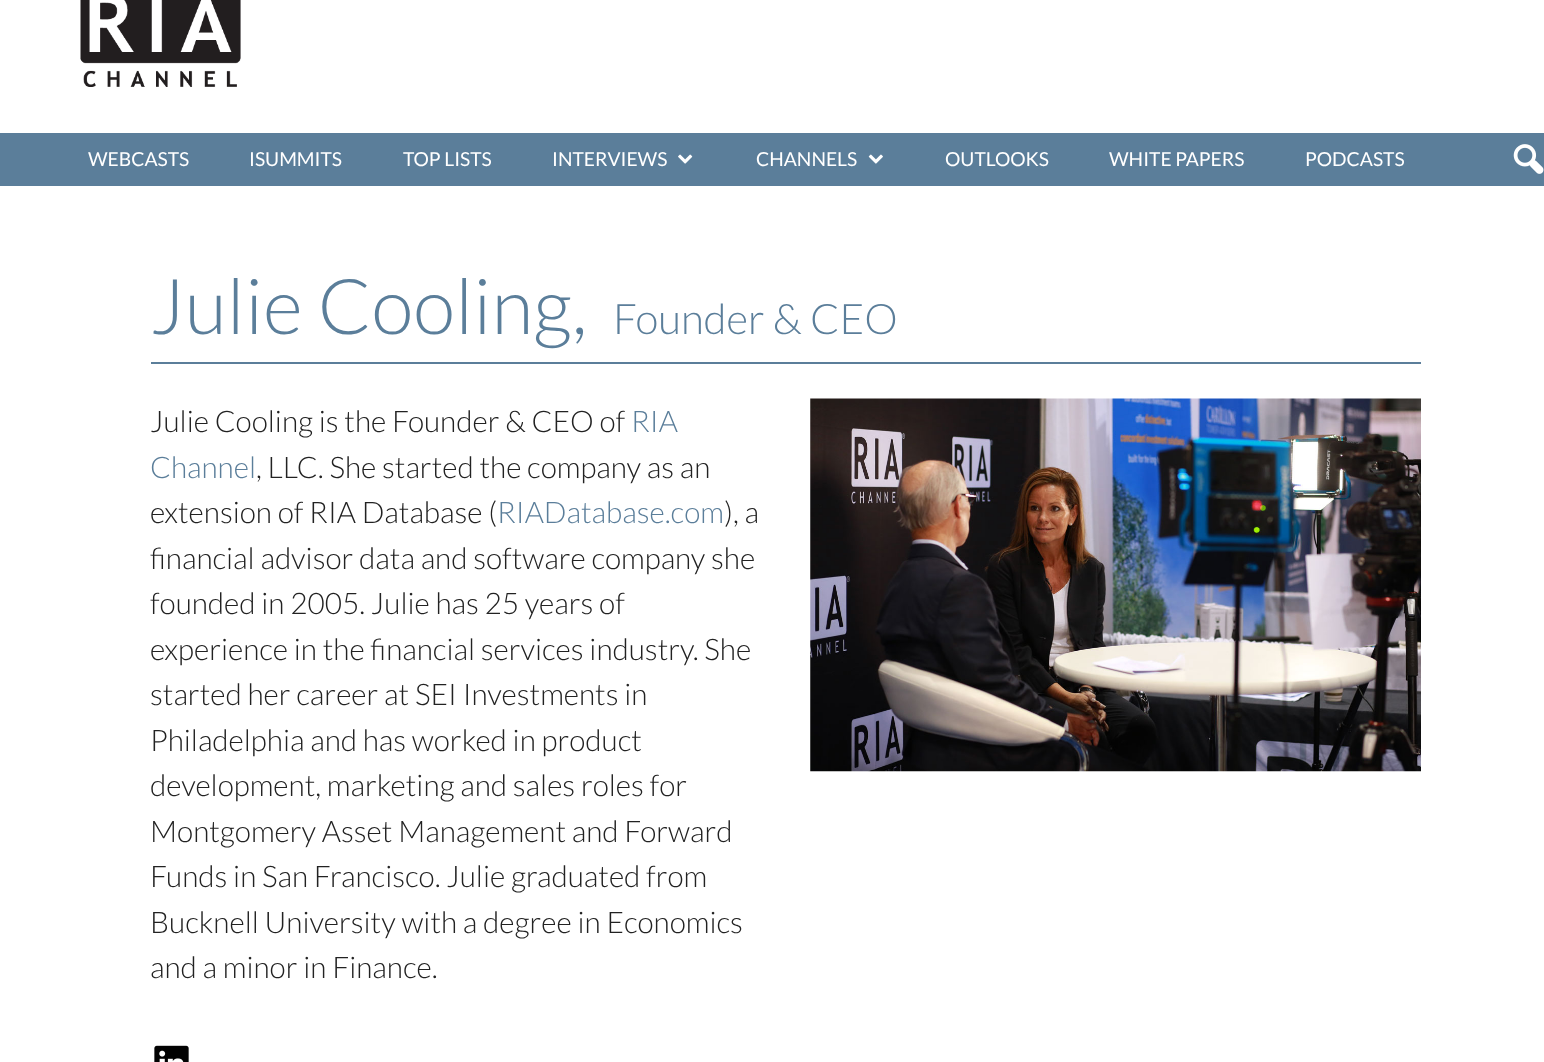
async function draw(canvas) {
  canvas.width = 1544
  canvas.height = 1062
  const ctx = canvas.getContext('2d')
  ctx.miterLimit = 4
  ctx.fontKerning = 'normal'
  async function loadImage(src) {
    const img = new Image()
    img.src = src
    await img.decode()
    return img
  }

  ctx.fillStyle = '#fff'
  ctx.fillRect(0, 0, 1544, 1062)
  ctx.drawImage(await loadImage('image0.png'), 80, 0, 161, 87)
  ctx.fillStyle = '#5b7e9a'
  ctx.fillRect(0, 133, 1544, 53)
  ctx.font = '19.25px Lato'
  ctx.fillStyle = '#fff'
  ctx.fillText('WEBCASTS', 88, 166)
  ctx.fillText('ISUMMITS', 249, 166)
  ctx.fillText('TOP LISTS', 403, 166)
  ctx.fillText('INTERVIEWS', 552, 166)
  ctx.drawImage(await loadImage('image1.png'), 678, 154, 15, 10)
  ctx.fillText('CHANNELS', 756, 166)
  ctx.drawImage(await loadImage('image2.png'), 868, 154, 15, 10)
  ctx.fillText('OUTLOOKS', 945, 166)
  ctx.fillText('WHITE PAPERS', 1109, 166)
  ctx.fillText('PODCASTS', 1305, 166)
  ctx.drawImage(await loadImage('image3.png'), 1513, 144, 31, 30)
  ctx.font = '300 77px Lato'
  ctx.fillStyle = '#5b7e9a'
  ctx.fillText('Julie Cooling,', 150, 334)
  ctx.font = '300 42px Lato'
  ctx.fillText('Founder & CEO', 613, 334)
  ctx.fillRect(151, 362, 1270, 2)
  ctx.font = '300 29.75px Lato'
  ctx.fillStyle = '#222'
  ctx.fillText('Julie Cooling is the Founder & CEO of', 150, 432)
  ctx.fillStyle = '#5b7e9a'
  ctx.fillText('RIA', 631, 432)
  ctx.fillText('Channel', 150, 478)
  ctx.fillStyle = '#222'
  ctx.fillText(', LLC. She started the company as an', 256, 478)
  ctx.fillText('extension of RIA Database (', 150, 523)
  ctx.fillStyle = '#5b7e9a'
  ctx.fillText('RIADatabase.com', 497, 523)
  ctx.fillStyle = '#222'
  ctx.fillText('), a', 724, 523)
  ctx.fillText('financial advisor data and software company she', 150, 569)
  ctx.fillText('founded in 2005. Julie has 25 years of', 150, 614)
  ctx.fillText('experience in the financial services industry. She', 150, 660)
  ctx.fillText('started her career at SEI Investments in', 150, 705)
  ctx.fillText('Philadelphia and has worked in product', 150, 751)
  ctx.fillText('development, marketing and sales roles for', 150, 796)
  ctx.fillText('Montgomery Asset Management and Forward', 150, 842)
  ctx.fillText('Funds in San Francisco. Julie graduated from', 150, 887)
  ctx.fillText('Bucknell University with a degree in Economics', 150, 933)
  ctx.fillText('and a minor in Finance.', 150, 978)
  ctx.drawImage(await loadImage('image4.png'), 154, 1045, 35, 17)
  ctx.drawImage(await loadImage('image5.png'), 810, 398, 611, 374)
}

draw(document.querySelector('canvas'))
